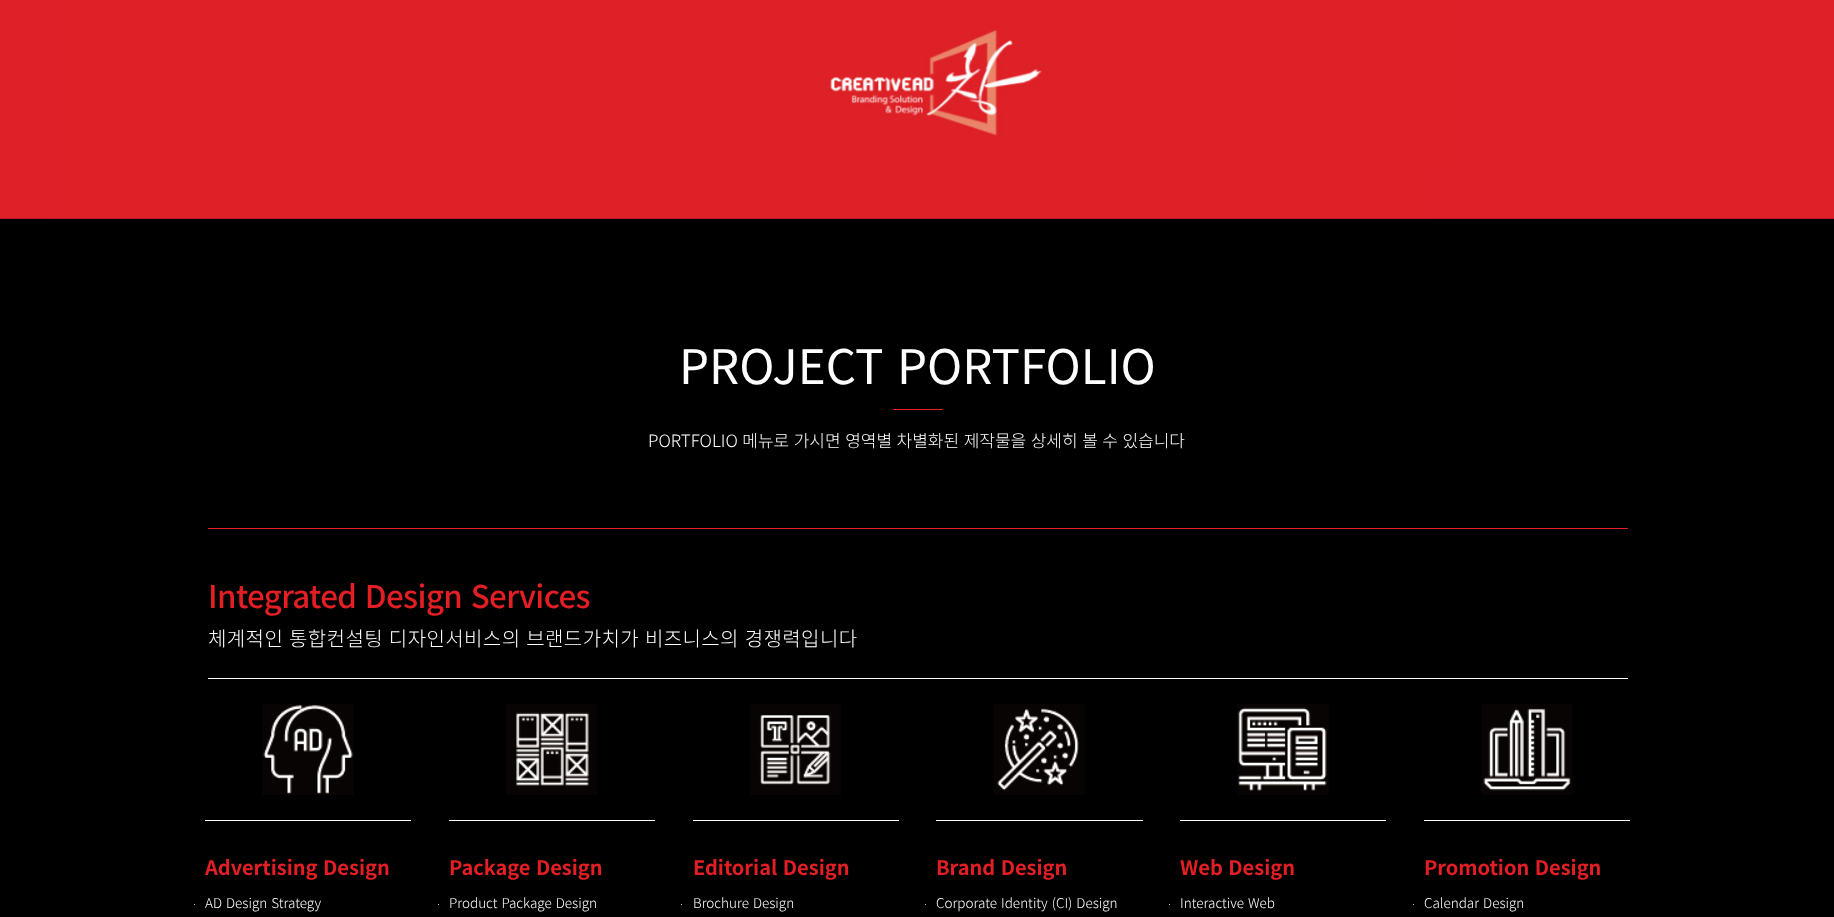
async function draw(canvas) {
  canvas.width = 1834
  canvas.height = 917
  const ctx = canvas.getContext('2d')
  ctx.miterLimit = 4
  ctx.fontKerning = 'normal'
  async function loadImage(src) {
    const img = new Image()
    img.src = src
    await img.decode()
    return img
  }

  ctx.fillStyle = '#000'
  ctx.fillRect(0, 0, 1834, 917)
  ctx.drawImage(await loadImage('image0.png'), 0, 0, 1834, 219)
  ctx.wordSpacing = '3px'
  ctx.font = '47.5px Noto Sans KR'
  ctx.fillStyle = '#fff'
  ctx.fillText('PROJECT PORTFOLIO', 679, 384)
  ctx.fillStyle = '#e31f25'
  ctx.fillRect(893, 409, 50, 1)
  ctx.wordSpacing = '0.75px'
  ctx.font = '300 17px Noto Sans KR'
  ctx.fillStyle = '#fff'
  ctx.fillText('PORTFOLIO 메뉴로 가시면 영역별 차별화된 제작물을 상세히 볼 수 있습니다', 648, 447)
  ctx.fillStyle = '#e31f25'
  ctx.fillRect(208, 528, 1420, 1)
  ctx.letterSpacing = '-0.6px'
  ctx.wordSpacing = '2px'
  ctx.font = '500 31.25px Noto Sans KR'
  ctx.fillText('Integrated Design Services', 208, 608)
  ctx.letterSpacing = '0.4px'
  ctx.wordSpacing = '1px'
  ctx.font = '300 20px Noto Sans KR'
  ctx.fillStyle = '#fff'
  ctx.fillText('체계적인 통합컨설팅 디자인서비스의 브랜드가치가 비즈니스의 경쟁력입니다', 208, 646)
  ctx.fillRect(208, 678, 1420, 1)
  ctx.drawImage(await loadImage('image1.png'), 262, 704, 92, 91)
  ctx.fillRect(205, 820, 206, 1)
  ctx.letterSpacing = '0px'
  ctx.font = 'bold 20px Noto Sans KR'
  ctx.fillStyle = '#e31f25'
  ctx.fillText('Advertising Design', 205, 875)
  ctx.fillStyle = '#fff'
  ctx.beginPath()
  ctx.arc(194.5, 904.5, 0.5, 0, 2 * Math.PI)
  ctx.fill()
  ctx.font = '300 13.5px Noto Sans KR'
  ctx.fillText('AD Design Strategy', 205, 908)
  ctx.drawImage(await loadImage('image2.png'), 506, 704, 92, 91)
  ctx.fillRect(449, 820, 206, 1)
  ctx.font = 'bold 20px Noto Sans KR'
  ctx.fillStyle = '#e31f25'
  ctx.fillText('Package Design', 449, 875)
  ctx.fillStyle = '#fff'
  ctx.beginPath()
  ctx.arc(438.5, 904.5, 0.5, 0, 2 * Math.PI)
  ctx.fill()
  ctx.font = '300 13.5px Noto Sans KR'
  ctx.fillText('Product Package Design', 449, 908)
  ctx.drawImage(await loadImage('image3.png'), 750, 704, 91, 91)
  ctx.fillRect(693, 820, 206, 1)
  ctx.font = 'bold 20px Noto Sans KR'
  ctx.fillStyle = '#e31f25'
  ctx.fillText('Editorial Design', 693, 875)
  ctx.fillStyle = '#fff'
  ctx.beginPath()
  ctx.arc(681.5, 904.5, 0.5, 0, 2 * Math.PI)
  ctx.fill()
  ctx.font = '300 13.5px Noto Sans KR'
  ctx.fillText('Brochure Design', 693, 908)
  ctx.drawImage(await loadImage('image4.png'), 994, 704, 91, 91)
  ctx.fillRect(936, 820, 207, 1)
  ctx.font = 'bold 20px Noto Sans KR'
  ctx.fillStyle = '#e31f25'
  ctx.fillText('Brand Design', 936, 875)
  ctx.fillStyle = '#fff'
  ctx.beginPath()
  ctx.arc(925.5, 904.5, 0.5, 0, 2 * Math.PI)
  ctx.fill()
  ctx.font = '300 13.5px Noto Sans KR'
  ctx.fillText('Corporate Identity (CI) Design', 936, 908)
  ctx.drawImage(await loadImage('image5.png'), 1237, 704, 92, 91)
  ctx.fillRect(1180, 820, 206, 1)
  ctx.font = 'bold 20px Noto Sans KR'
  ctx.fillStyle = '#e31f25'
  ctx.fillText('Web Design', 1180, 875)
  ctx.fillStyle = '#fff'
  ctx.beginPath()
  ctx.arc(1169.5, 904.5, 0.5, 0, 2 * Math.PI)
  ctx.fill()
  ctx.font = '300 13.5px Noto Sans KR'
  ctx.fillText('Interactive Web', 1180, 908)
  ctx.drawImage(await loadImage('image6.png'), 1481, 704, 92, 91)
  ctx.fillRect(1424, 820, 206, 1)
  ctx.font = 'bold 20px Noto Sans KR'
  ctx.fillStyle = '#e31f25'
  ctx.fillText('Promotion Design', 1424, 875)
  ctx.fillStyle = '#fff'
  ctx.beginPath()
  ctx.arc(1413.5, 904.5, 0.5, 0, 2 * Math.PI)
  ctx.fill()
  ctx.font = '300 13.5px Noto Sans KR'
  ctx.fillText('Calendar Design', 1424, 908)
}

draw(document.querySelector('canvas'))
